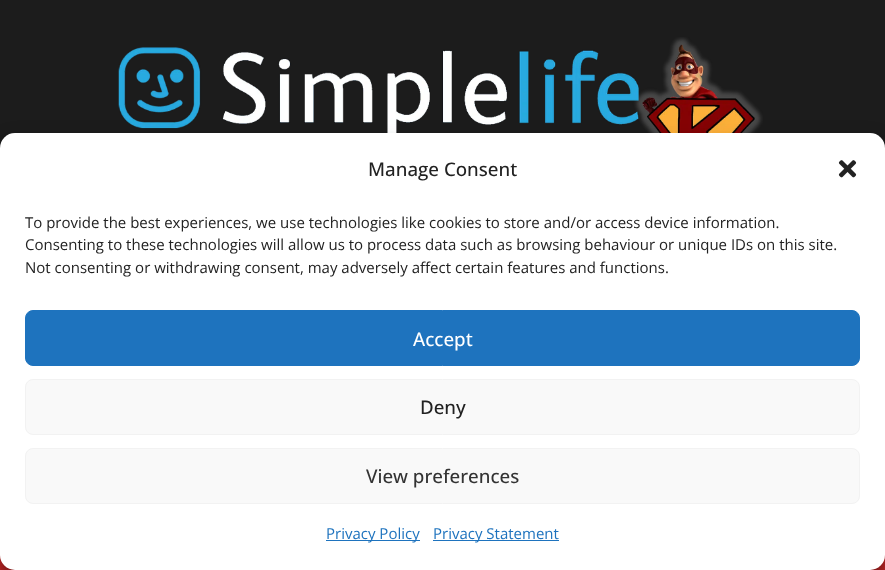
async function draw(canvas) {
  canvas.width = 885
  canvas.height = 570
  const ctx = canvas.getContext('2d')
  ctx.miterLimit = 4
  ctx.fontKerning = 'normal'
  async function loadImage(src) {
    const img = new Image()
    img.src = src
    await img.decode()
    return img
  }

  ctx.fillStyle = '#1c1c1c'
  ctx.fillRect(0, 0, 885, 570)
  ctx.drawImage(await loadImage('image0.png'), 118, 37, 645, 96)
  ctx.fillStyle = '#c62828'
  ctx.fillRect(0, 555, 885, 15)
  ctx.fillStyle = '#0000003b'
  ctx.filter = 'blur(4px)'
  ctx.beginPath()
  ctx.roundRect(0, 140, 885, 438, 15)
  ctx.fill()
  ctx.filter = 'none'
  ctx.fillStyle = '#00000030'
  ctx.filter = 'blur(12.5px)'
  ctx.beginPath()
  ctx.roundRect(0, 145, 885, 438, 15)
  ctx.fill()
  ctx.filter = 'none'
  ctx.fillStyle = '#fff'
  ctx.beginPath()
  ctx.roundRect(0, 133, 885, 437, 15)
  ctx.fill()
  ctx.font = '500 18.75px Open Sans'
  ctx.fillStyle = '#222'
  ctx.fillText('Manage Consent', 368, 176)
  ctx.drawImage(await loadImage('image1.png'), 838, 160, 19, 18)
  ctx.font = '15px Open Sans'
  ctx.fillText('To provide the best experiences, we use technologies like cookies to store and/or access device information.', 25, 228)
  ctx.fillText('Consenting to these technologies will allow us to process data such as browsing behaviour or unique IDs on this site.', 25, 250)
  ctx.fillText('Not consenting or withdrawing consent, may adversely affect certain features and functions.', 25, 273)
  ctx.fillStyle = '#1e73be'
  ctx.beginPath()
  ctx.roundRect(25.5, 310.5, 834, 55, 7.5)
  ctx.fill()
  ctx.strokeStyle = '#1e73be'
  ctx.stroke()
  ctx.font = '500 18.75px Open Sans'
  ctx.fillStyle = '#fff'
  ctx.fillText('Accept', 413, 346)
  ctx.fillStyle = '#f9f9f9'
  ctx.beginPath()
  ctx.roundRect(25.5, 379.5, 834, 55, 7.5)
  ctx.fill()
  ctx.strokeStyle = '#f2f2f2'
  ctx.stroke()
  ctx.fillStyle = '#222'
  ctx.fillText('Deny', 420, 414)
  ctx.fillStyle = '#f9f9f9'
  ctx.beginPath()
  ctx.roundRect(25.5, 448.5, 834, 55, 7.5)
  ctx.fill()
  ctx.stroke()
  ctx.fillStyle = '#333'
  ctx.fillText('View preferences', 366, 483)
  ctx.fillStyle = '#1e73be'
  ctx.fillRect(326, 540, 94, 1)
  ctx.font = '15px Open Sans'
  ctx.fillText('Privacy Policy', 326, 539)
  ctx.fillRect(433, 540, 126, 1)
  ctx.fillText('Privacy Statement', 433, 539)
}

draw(document.querySelector('canvas'))
